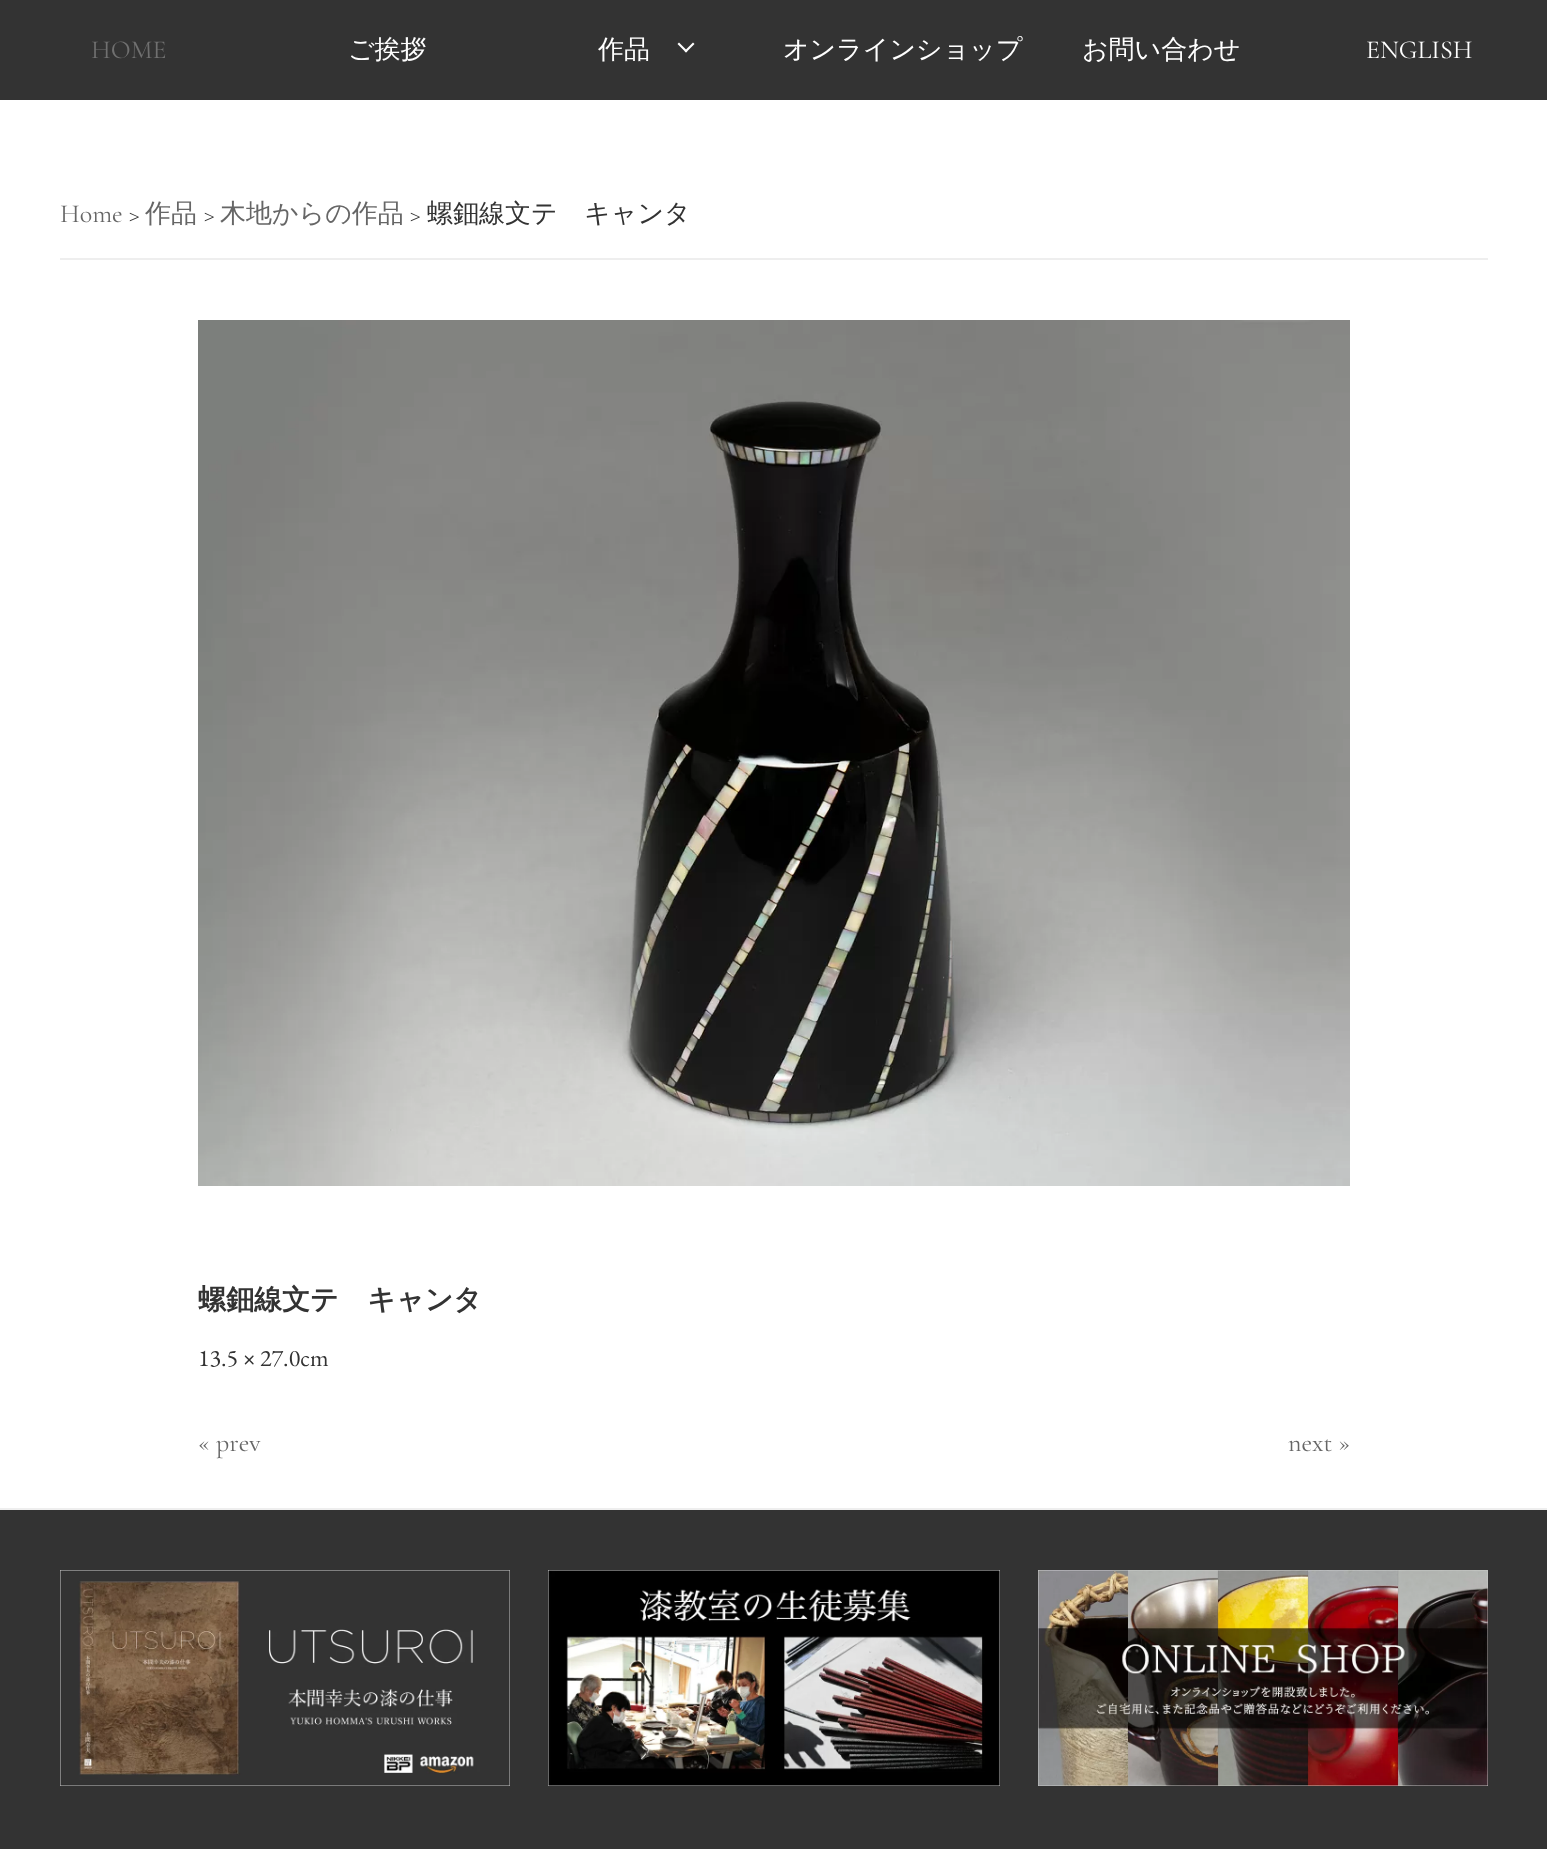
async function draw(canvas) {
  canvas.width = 1547
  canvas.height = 1849
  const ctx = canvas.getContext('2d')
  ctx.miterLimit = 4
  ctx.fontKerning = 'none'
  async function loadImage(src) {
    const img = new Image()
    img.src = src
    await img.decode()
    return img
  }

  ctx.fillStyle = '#fff'
  ctx.fillRect(0, 0, 1547, 1849)
  ctx.fillStyle = '#333'
  ctx.fillRect(0, 0, 516, 100)
  ctx.font = '26px Cormorant Garamond'
  ctx.fillStyle = '#707070'
  ctx.fillText('HOME', 91, 58)
  ctx.font = '500 26px WenQuanYi Zen Hei'
  ctx.fillStyle = '#fff'
  ctx.fillText('ご挨拶', 348, 58)
  ctx.fillStyle = '#333'
  ctx.fillRect(516, 0, 1031, 100)
  ctx.fillStyle = '#fff'
  ctx.fillText('作品', 598, 58)
  ctx.beginPath()
  ctx.moveTo(693, 42.5)
  ctx.lineTo(694.5, 44)
  ctx.lineTo(686, 52.5)
  ctx.lineTo(684.5, 51)
  ctx.closePath()
  ctx.fill()
  ctx.beginPath()
  ctx.moveTo(679, 42.5)
  ctx.lineTo(687.5, 51)
  ctx.lineTo(686, 52.5)
  ctx.lineTo(677.5, 44)
  ctx.closePath()
  ctx.fill()
  ctx.fillText('オンラインショップ', 783, 58)
  ctx.fillText('お問い合わせ', 1082, 58)
  ctx.font = '26px Cormorant Garamond'
  ctx.fillText('ENGLISH', 1366, 58)
  ctx.fillStyle = '#eee'
  ctx.fillRect(60, 258, 1428, 2)
  ctx.fillStyle = '#666'
  ctx.fillText('Home', 60, 222)
  ctx.fillStyle = '#333'
  ctx.fillText('>', 129, 222)
  ctx.font = '500 26px WenQuanYi Zen Hei'
  ctx.fillStyle = '#666'
  ctx.fillText('作品', 145, 222)
  ctx.font = '26px Cormorant Garamond'
  ctx.fillStyle = '#333'
  ctx.fillText('>', 204, 222)
  ctx.font = '500 26px WenQuanYi Zen Hei'
  ctx.fillStyle = '#666'
  ctx.fillText('木地からの作品', 220, 222)
  ctx.font = '26px Cormorant Garamond'
  ctx.fillStyle = '#333'
  ctx.fillText('>', 410, 222)
  ctx.font = '500 26px WenQuanYi Zen Hei'
  ctx.fillText('螺鈿線文デキャンタ', 427, 222)
  ctx.drawImage(await loadImage('image0.png'), 198, 320, 1152, 866)
  ctx.font = 'bold 28px WenQuanYi Zen Hei'
  ctx.fillText('螺鈿線文デキャンタ', 198, 1309)
  ctx.wordSpacing = '-1px'
  ctx.font = '24px EB Garamond'
  ctx.fillText('13.5 × 27.0cm', 198, 1366)
  ctx.wordSpacing = '0px'
  ctx.font = '26px Cormorant Garamond'
  ctx.fillStyle = '#666'
  ctx.fillText('« prev', 198, 1451)
  ctx.fillText('next »', 1288, 1451)
  ctx.fillStyle = '#333'
  ctx.fillRect(0, 1510, 1547, 339)
  ctx.fillStyle = '#eee'
  ctx.fillRect(0, 1508, 1547, 2)
  ctx.drawImage(await loadImage('image1.png'), 60, 1570, 450, 216)
  ctx.drawImage(await loadImage('image2.png'), 548, 1570, 452, 216)
  ctx.drawImage(await loadImage('image3.png'), 1038, 1570, 450, 216)
}

draw(document.querySelector('canvas'))
